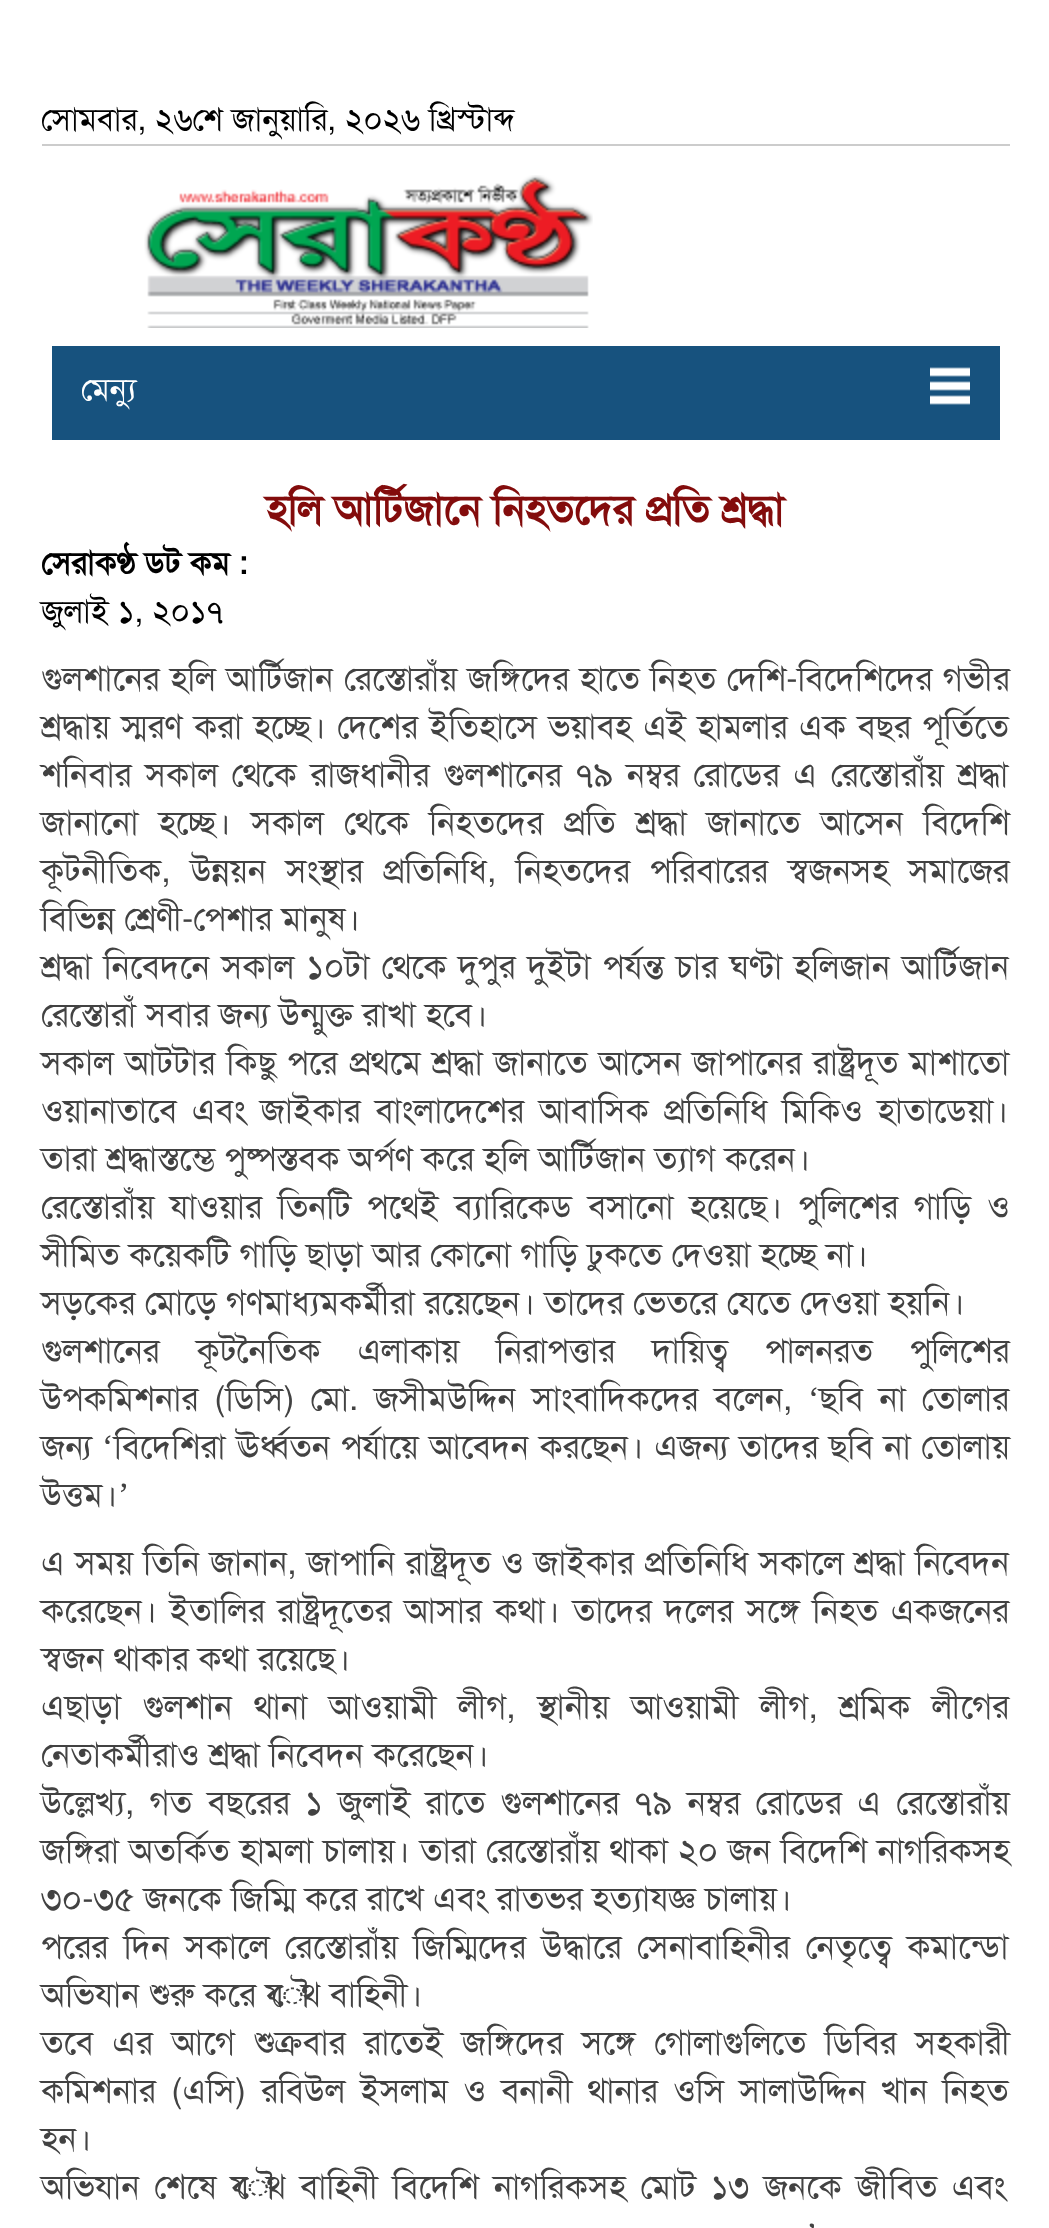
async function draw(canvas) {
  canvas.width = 1049
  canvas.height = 2228
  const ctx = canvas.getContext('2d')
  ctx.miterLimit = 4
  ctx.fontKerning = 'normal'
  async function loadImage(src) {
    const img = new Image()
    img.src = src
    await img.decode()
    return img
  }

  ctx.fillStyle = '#fff'
  ctx.fillRect(0, 0, 1049, 2228)
  ctx.fillStyle = '#ccc'
  ctx.fillRect(42, 144, 968, 2)
  ctx.save()
  ctx.beginPath()
  ctx.rect(42, 96, 968, 48)
  ctx.clip()
  ctx.font = '32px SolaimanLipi'
  ctx.fillStyle = '#000'
  ctx.fillText('সোমবার,', 41, 130)
  ctx.restore()
  ctx.font = '32px SolaimanLipi'
  ctx.fillStyle = '#000'
  ctx.fillText('২৬শে জানুয়ারি, ২০২৬ খ্রিস্টাব্দ', 155, 130)
  ctx.drawImage(await loadImage('image0.png'), 144, 175, 449, 153)
  ctx.fillStyle = '#17527e'
  ctx.fillRect(52, 346, 948, 94)
  ctx.fillStyle = '#fff'
  ctx.fillText('মেন্যু', 81, 400)
  ctx.drawImage(await loadImage('image1.png'), 930, 367, 40, 38)
  ctx.font = 'bold 42px SolaimanLipi'
  ctx.fillStyle = '#830c0c'
  ctx.fillText('হলি আর্টিজানে নিহতদের প্রতি শ্রদ্ধা', 266, 524)
  ctx.font = 'bold 32px SolaimanLipi'
  ctx.fillStyle = '#000'
  ctx.fillText('সেরাকণ্ঠ ডট কম :', 41, 574)
  ctx.font = '32px SolaimanLipi'
  ctx.fillText('জুলাই ১, ২০১৭', 41, 622)
  ctx.wordSpacing = '1.25px'
  ctx.font = '34px SolaimanLipi'
  ctx.fillStyle = '#424242'
  ctx.fillText('গুলশানের হলি আর্টিজান রেস্তোরাঁয় জঙ্গিদের হাতে নিহত দেশি-বিদেশিদের গভীর', 41, 690)
  ctx.wordSpacing = '2px'
  ctx.fillText('শ্রদ্ধায় স্মরণ করা হচ্ছে। দেশের ইতিহাসে ভয়াবহ এই হামলার এক বছর পূর্তিতে', 41, 738)
  ctx.wordSpacing = '4.25px'
  ctx.fillText('শনিবার সকাল থেকে রাজধানীর গুলশানের ৭৯ নম্বর রোডের এ রেস্তোরাঁয় শ্রদ্ধা', 41, 786)
  ctx.wordSpacing = '10.75px'
  ctx.fillText('জানানো হচ্ছে। সকাল থেকে নিহতদের প্রতি শ্রদ্ধা জানাতে আসেন বিদেশি', 41, 834)
  ctx.wordSpacing = '10.25px'
  ctx.fillText('কূটনীতিক, উন্নয়ন সংস্থার প্রতিনিধি, নিহতদের পরিবারের স্বজনসহ সমাজের', 41, 882)
  ctx.wordSpacing = '0px'
  ctx.fillText('বিভিন্ন শ্রেণী-পেশার মানুষ।', 41, 930)
  ctx.wordSpacing = '2.4px'
  ctx.fillText('শ্রদ্ধা নিবেদনে সকাল ১০টা থেকে দুপুর দুইটা পর্যন্ত চার ঘণ্টা হলিজান আর্টিজান', 41, 978)
  ctx.wordSpacing = '0px'
  ctx.fillText('রেস্তোরাঁ সবার জন্য উন্মুক্ত রাখা হবে।', 41, 1026)
  ctx.wordSpacing = '1.75px'
  ctx.fillText('সকাল আটটার কিছু পরে প্রথমে শ্রদ্ধা জানাতে আসেন জাপানের রাষ্ট্রদূত মাশাতো', 41, 1074)
  ctx.wordSpacing = '5.25px'
  ctx.fillText('ওয়ানাতাবে এবং জাইকার বাংলাদেশের আবাসিক প্রতিনিধি মিকিও হাতাডেয়া।', 41, 1122)
  ctx.wordSpacing = '0px'
  ctx.fillText('তারা শ্রদ্ধাস্তম্ভে পুষ্পস্তবক অর্পণ করে হলি আর্টিজান ত্যাগ করেন।', 41, 1170)
  ctx.wordSpacing = '6.5px'
  ctx.fillText('রেস্তোরাঁয় যাওয়ার তিনটি পথেই ব্যারিকেড বসানো হয়েছে। পুলিশের গাড়ি ও', 41, 1218)
  ctx.wordSpacing = '0px'
  ctx.fillText('সীমিত কয়েকটি গাড়ি ছাড়া আর কোনো গাড়ি ঢুকতে দেওয়া হচ্ছে না।', 41, 1266)
  ctx.fillText('সড়কের মোড়ে গণমাধ্যমকর্মীরা রয়েছেন। তাদের ভেতরে যেতে দেওয়া হয়নি।', 41, 1314)
  ctx.wordSpacing = '27.5px'
  ctx.fillText('গুলশানের কূটনৈতিক এলাকায় নিরাপত্তার দায়িত্ব পালনরত পুলিশের', 41, 1362)
  ctx.wordSpacing = '6.5px'
  ctx.fillText('উপকমিশনার (ডিসি) মো. জসীমউদ্দিন সাংবাদিকদের বলেন,', 41, 1410)
  ctx.wordSpacing = '0px'
  ctx.font = '34px Liberation Serif'
  ctx.fillText('‘', 808, 1410)
  ctx.wordSpacing = '6.5px'
  ctx.font = '34px SolaimanLipi'
  ctx.fillText('ছবি না তোলার', 819, 1410)
  ctx.wordSpacing = '0px'
  ctx.fillText('জন্য', 41, 1458)
  ctx.font = '34px Liberation Serif'
  ctx.fillText('‘', 102, 1458)
  ctx.wordSpacing = '1.25px'
  ctx.font = '34px SolaimanLipi'
  ctx.fillText('বিদেশিরা ঊর্ধ্বতন পর্যায়ে আবেদন করছেন। এজন্য তাদের ছবি না তোলায়', 114, 1458)
  ctx.wordSpacing = '0px'
  ctx.fillText('উত্তম।', 41, 1506)
  ctx.font = '34px Liberation Serif'
  ctx.fillText('’', 118, 1506)
  ctx.wordSpacing = '0.9px'
  ctx.font = '34px SolaimanLipi'
  ctx.fillText('এ সময় তিনি জানান, জাপানি রাষ্ট্রদূত ও জাইকার প্রতিনিধি সকালে শ্রদ্ধা নিবেদন', 41, 1574)
  ctx.wordSpacing = '3.25px'
  ctx.fillText('করেছেন। ইতালির রাষ্ট্রদূতের আসার কথা। তাদের দলের সঙ্গে নিহত একজনের', 41, 1622)
  ctx.wordSpacing = '0px'
  ctx.fillText('স্বজন থাকার কথা রয়েছে।', 41, 1670)
  ctx.wordSpacing = '12px'
  ctx.fillText('এছাড়া গুলশান থানা আওয়ামী লীগ, স্থানীয় আওয়ামী লীগ, শ্রমিক লীগের', 41, 1718)
  ctx.wordSpacing = '0px'
  ctx.fillText('নেতাকর্মীরাও শ্রদ্ধা নিবেদন করেছেন।', 41, 1766)
  ctx.wordSpacing = '5.9px'
  ctx.fillText('উল্লেখ্য, গত বছরের ১ জুলাই রাতে গুলশানের ৭৯ নম্বর রোডের এ রেস্তোরাঁয়', 41, 1814)
  ctx.wordSpacing = '0.75px'
  ctx.fillText('জঙ্গিরা অতর্কিত হামলা চালায়। তারা রেস্তোরাঁয় থাকা ২০ জন বিদেশি নাগরিকসহ', 41, 1862)
  ctx.wordSpacing = '0px'
  ctx.fillText('৩০-৩৫ জনকে জিম্মি করে রাখে এবং রাতভর হত্যাযজ্ঞ চালায়।', 41, 1910)
  ctx.wordSpacing = '6px'
  ctx.fillText('পরের দিন সকালে রেস্তোরাঁয় জিম্মিদের উদ্ধারে সেনাবাহিনীর নেতৃত্বে কমান্ডো', 41, 1958)
  ctx.wordSpacing = '0px'
  ctx.fillText('অভিযান শুরু করে যৌথ বাহিনী।', 41, 2006)
  ctx.wordSpacing = '9.25px'
  ctx.fillText('তবে এর আগে শুক্রবার রাতেই জঙ্গিদের সঙ্গে গোলাগুলিতে ডিবির সহকারী', 41, 2054)
  ctx.wordSpacing = '5.75px'
  ctx.fillText('কমিশনার (এসি) রবিউল ইসলাম ও বনানী থানার ওসি সালাউদ্দিন খান নিহত', 41, 2102)
  ctx.wordSpacing = '0px'
  ctx.fillText('হন।', 41, 2150)
  ctx.wordSpacing = '5.25px'
  ctx.fillText('অভিযান শেষে যৌথ বাহিনী বিদেশি নাগরিকসহ মোট ১৩ জনকে জীবিত এবং', 41, 2198)
  ctx.wordSpacing = '0px'
  ctx.font = '34px Liberation Serif'
  ctx.fillText('’', 806, 2246)
}

draw(document.querySelector('canvas'))
